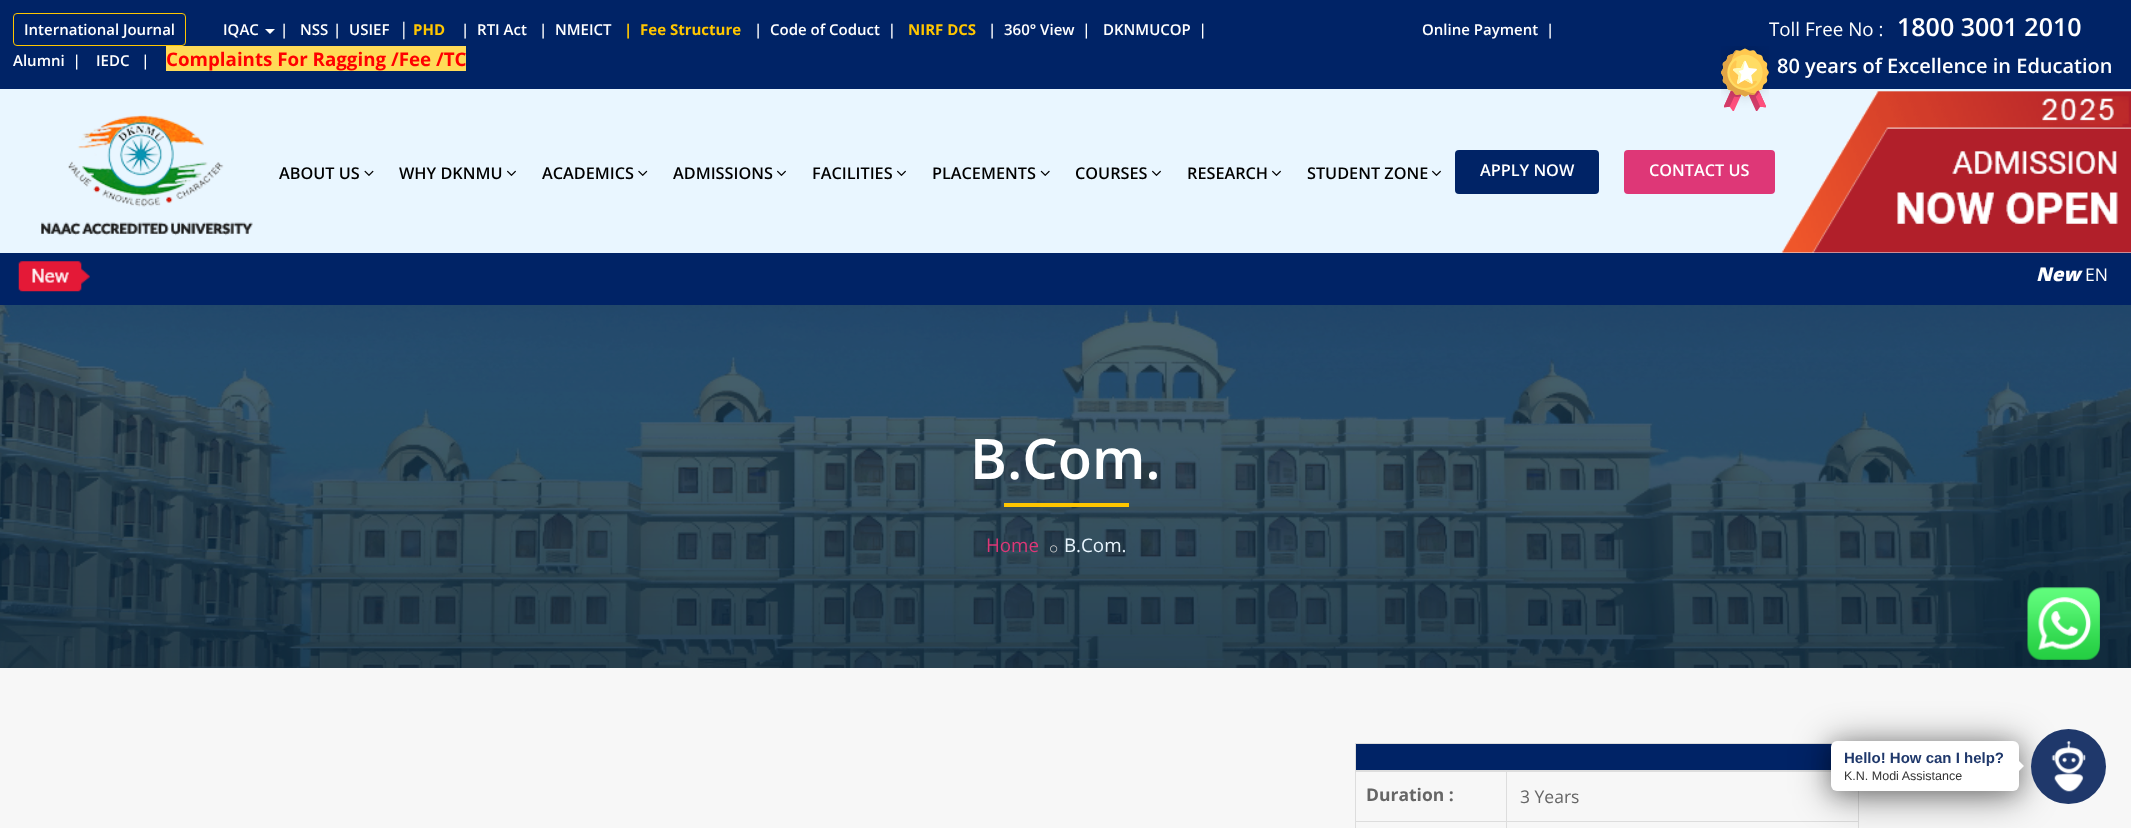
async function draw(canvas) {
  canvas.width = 2131
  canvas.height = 828
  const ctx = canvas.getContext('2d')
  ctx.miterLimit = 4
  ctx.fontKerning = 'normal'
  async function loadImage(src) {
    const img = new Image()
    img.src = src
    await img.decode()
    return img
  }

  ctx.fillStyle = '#002366'
  ctx.fillRect(0, 0, 2131, 828)
  ctx.beginPath()
  ctx.roundRect(13.5, 13.5, 172, 32, 3.5)
  ctx.strokeStyle = '#ffc600'
  ctx.stroke()
  ctx.font = '600 15px Open Sans'
  ctx.fillStyle = '#fff'
  ctx.fillText('International Journal', 24, 35)
  ctx.fillText('IQAC', 223, 35)
  ctx.beginPath()
  ctx.moveTo(265, 29)
  ctx.lineTo(275, 29)
  ctx.lineTo(270, 34)
  ctx.closePath()
  ctx.fill()
  ctx.fillText('|', 280, 35)
  ctx.fillText('NSS', 300, 35)
  ctx.fillText('|  USIEF', 333, 35)
  ctx.font = '17.5px Open Sans'
  ctx.fillText('|', 399, 35)
  ctx.font = 'bold 15px Open Sans'
  ctx.fillStyle = '#ffc600'
  ctx.fillText('PHD', 413, 35)
  ctx.font = '600 15px Open Sans'
  ctx.fillStyle = '#fff'
  ctx.fillText('|  RTI Act', 461, 35)
  ctx.fillText('|  NMEICT', 539, 35)
  ctx.font = 'bold 15px Open Sans'
  ctx.fillStyle = '#ffc600'
  ctx.fillText('|  Fee Structure', 624, 35)
  ctx.font = '600 15px Open Sans'
  ctx.fillStyle = '#fff'
  ctx.fillText('|  Code of Coduct  |', 754, 35)
  ctx.font = 'bold 15px Open Sans'
  ctx.fillStyle = '#ffc600'
  ctx.fillText('NIRF DCS', 908, 35)
  ctx.font = '600 15px Open Sans'
  ctx.fillStyle = '#fff'
  ctx.fillText('|  360° View  |', 988, 35)
  ctx.fillText('DKNMUCOP  |', 1103, 35)
  ctx.fillText('Online Payment  |', 1422, 35)
  ctx.fillText('Alumni  |', 13, 66)
  ctx.fillText('IEDC   |', 96, 66)
  ctx.fillStyle = '#ffdb58'
  ctx.fillRect(166, 46, 300, 25)
  ctx.font = 'bold 18.75px Open Sans'
  ctx.fillStyle = '#f00'
  ctx.fillText('Complaints For Ragging /Fee /TC', 166, 66)
  ctx.font = '18.75px Open Sans'
  ctx.fillStyle = '#fff'
  ctx.fillText('Toll Free No :', 1769, 36)
  ctx.font = '600 25px Open Sans'
  ctx.fillText('1800 3001 2010', 1897, 36)
  ctx.fillStyle = '#e9f6ff'
  ctx.fillRect(0, 89, 2131, 164)
  ctx.drawImage(await loadImage('image0.png'), 1721, 46, 48, 65)
  ctx.font = '600 20px Open Sans'
  ctx.fillStyle = '#fff'
  ctx.fillText('80 years of Excellence in Education', 1777, 73)
  ctx.drawImage(await loadImage('image1.png'), 41, 115, 212, 121)
  ctx.font = '600 16.25px Open Sans'
  ctx.fillStyle = '#000'
  ctx.fillText('ABOUT US', 279, 179)
  ctx.drawImage(await loadImage('image2.png'), 364, 170, 10, 6)
  ctx.fillText('WHY DKNMU', 399, 179)
  ctx.drawImage(await loadImage('image3.png'), 507, 170, 9, 6)
  ctx.fillText('ACADEMICS', 542, 179)
  ctx.drawImage(await loadImage('image4.png'), 638, 170, 10, 6)
  ctx.fillText('ADMISSIONS', 673, 179)
  ctx.drawImage(await loadImage('image3.png'), 777, 170, 9, 6)
  ctx.fillText('FACILITIES', 812, 179)
  ctx.drawImage(await loadImage('image3.png'), 897, 170, 9, 6)
  ctx.fillText('PLACEMENTS', 932, 179)
  ctx.drawImage(await loadImage('image5.png'), 1040, 170, 10, 6)
  ctx.fillText('COURSES', 1075, 179)
  ctx.drawImage(await loadImage('image3.png'), 1152, 170, 9, 6)
  ctx.fillText('RESEARCH', 1187, 179)
  ctx.drawImage(await loadImage('image3.png'), 1272, 170, 9, 6)
  ctx.fillText('STUDENT ZONE', 1307, 179)
  ctx.drawImage(await loadImage('image3.png'), 1432, 170, 9, 6)
  ctx.fillStyle = '#002366'
  ctx.beginPath()
  ctx.roundRect(1455, 150, 144, 44, 4)
  ctx.fill()
  ctx.fillStyle = '#fff'
  ctx.fillText('APPLY NOW', 1480, 176)
  ctx.fillStyle = '#de3777'
  ctx.beginPath()
  ctx.roundRect(1624, 150, 151, 44, 4)
  ctx.fill()
  ctx.fillStyle = '#fff'
  ctx.fillText('CONTACT US', 1649, 176)
  ctx.drawImage(await loadImage('image6.png'), 1781, 91, 350, 162)
  ctx.drawImage(await loadImage('image7.png'), 18, 261, 72, 31)
  ctx.font = 'italic 800 18.75px Open Sans'
  ctx.fillText('New', 2036, 281)
  ctx.font = '17.5px Open Sans'
  ctx.fillText('EN', 2085, 281)
  ctx.fillStyle = '#f7f7f7'
  ctx.fillRect(0, 668, 2131, 160)
  ctx.drawImage(await loadImage('image8.png'), 0, 305, 2131, 363)
  ctx.font = '600 56px Open Sans'
  ctx.fillStyle = '#fff'
  ctx.fillText('B.Com.', 970, 479)
  ctx.fillStyle = '#ffc600'
  ctx.fillRect(1004, 503, 125, 4)
  ctx.font = '18.75px Open Sans'
  ctx.fillStyle = '#de3777'
  ctx.fillText('Home', 986, 552)
  ctx.drawImage(await loadImage('image9.png'), 1050, 545, 8, 8)
  ctx.fillStyle = '#e9f6ff'
  ctx.fillText('B.Com.', 1064, 552)
  ctx.fillStyle = '#ddd'
  ctx.fillRect(1355, 743, 478, 1)
  ctx.fillRect(1858, 791, 1, 37)
  ctx.fillRect(1355, 743, 1, 85)
  ctx.fillRect(1506, 821, 353, 1)
  ctx.fillRect(1506, 821, 1, 7)
  ctx.fillRect(1355, 821, 153, 1)
  ctx.fillRect(1506, 770, 1, 53)
  ctx.fillRect(1355, 769, 476, 3)
  ctx.fillStyle = '#002366'
  ctx.fillRect(1356, 744, 476, 26)
  ctx.font = 'bold 17.5px Open Sans'
  ctx.fillStyle = '#666'
  ctx.fillText('Duration :', 1366, 801)
  ctx.font = '17.5px Open Sans'
  ctx.fillText('3 Years', 1520, 803)
  ctx.drawImage(await loadImage('image10.png'), 2027, 587, 73, 73)
  ctx.fillStyle = '#00000080'
  ctx.filter = 'blur(19px)'
  ctx.beginPath()
  ctx.roundRect(1831, 745, 188, 50, 6)
  ctx.fill()
  ctx.filter = 'none'
  ctx.fillStyle = '#00000033'
  ctx.filter = 'blur(9.5px)'
  ctx.beginPath()
  ctx.roundRect(1831, 744, 188, 50, 6)
  ctx.fill()
  ctx.filter = 'none'
  ctx.fillStyle = '#fff'
  ctx.beginPath()
  ctx.roundRect(1831, 741, 188, 50, 6)
  ctx.fill()
  ctx.font = 'bold 15px Liberation Sans'
  ctx.fillStyle = '#1f386b'
  ctx.fillText('Hello! How can I help?', 1844, 763)
  ctx.fillStyle = '#fff'
  ctx.beginPath()
  ctx.moveTo(2019, 771)
  ctx.lineTo(2019, 761)
  ctx.lineTo(2024, 766)
  ctx.closePath()
  ctx.fill()
  ctx.font = '12.5px Liberation Sans'
  ctx.fillStyle = '#333'
  ctx.fillText('K.N. Modi Assistance', 1844, 780)
  ctx.fillStyle = '#1f386b'
  ctx.beginPath()
  ctx.arc(2068.5, 766.5, 37.5, 0, 2 * Math.PI)
  ctx.fill()
  ctx.drawImage(await loadImage('image11.png'), 2051, 741, 35, 51)
}

draw(document.querySelector('canvas'))
